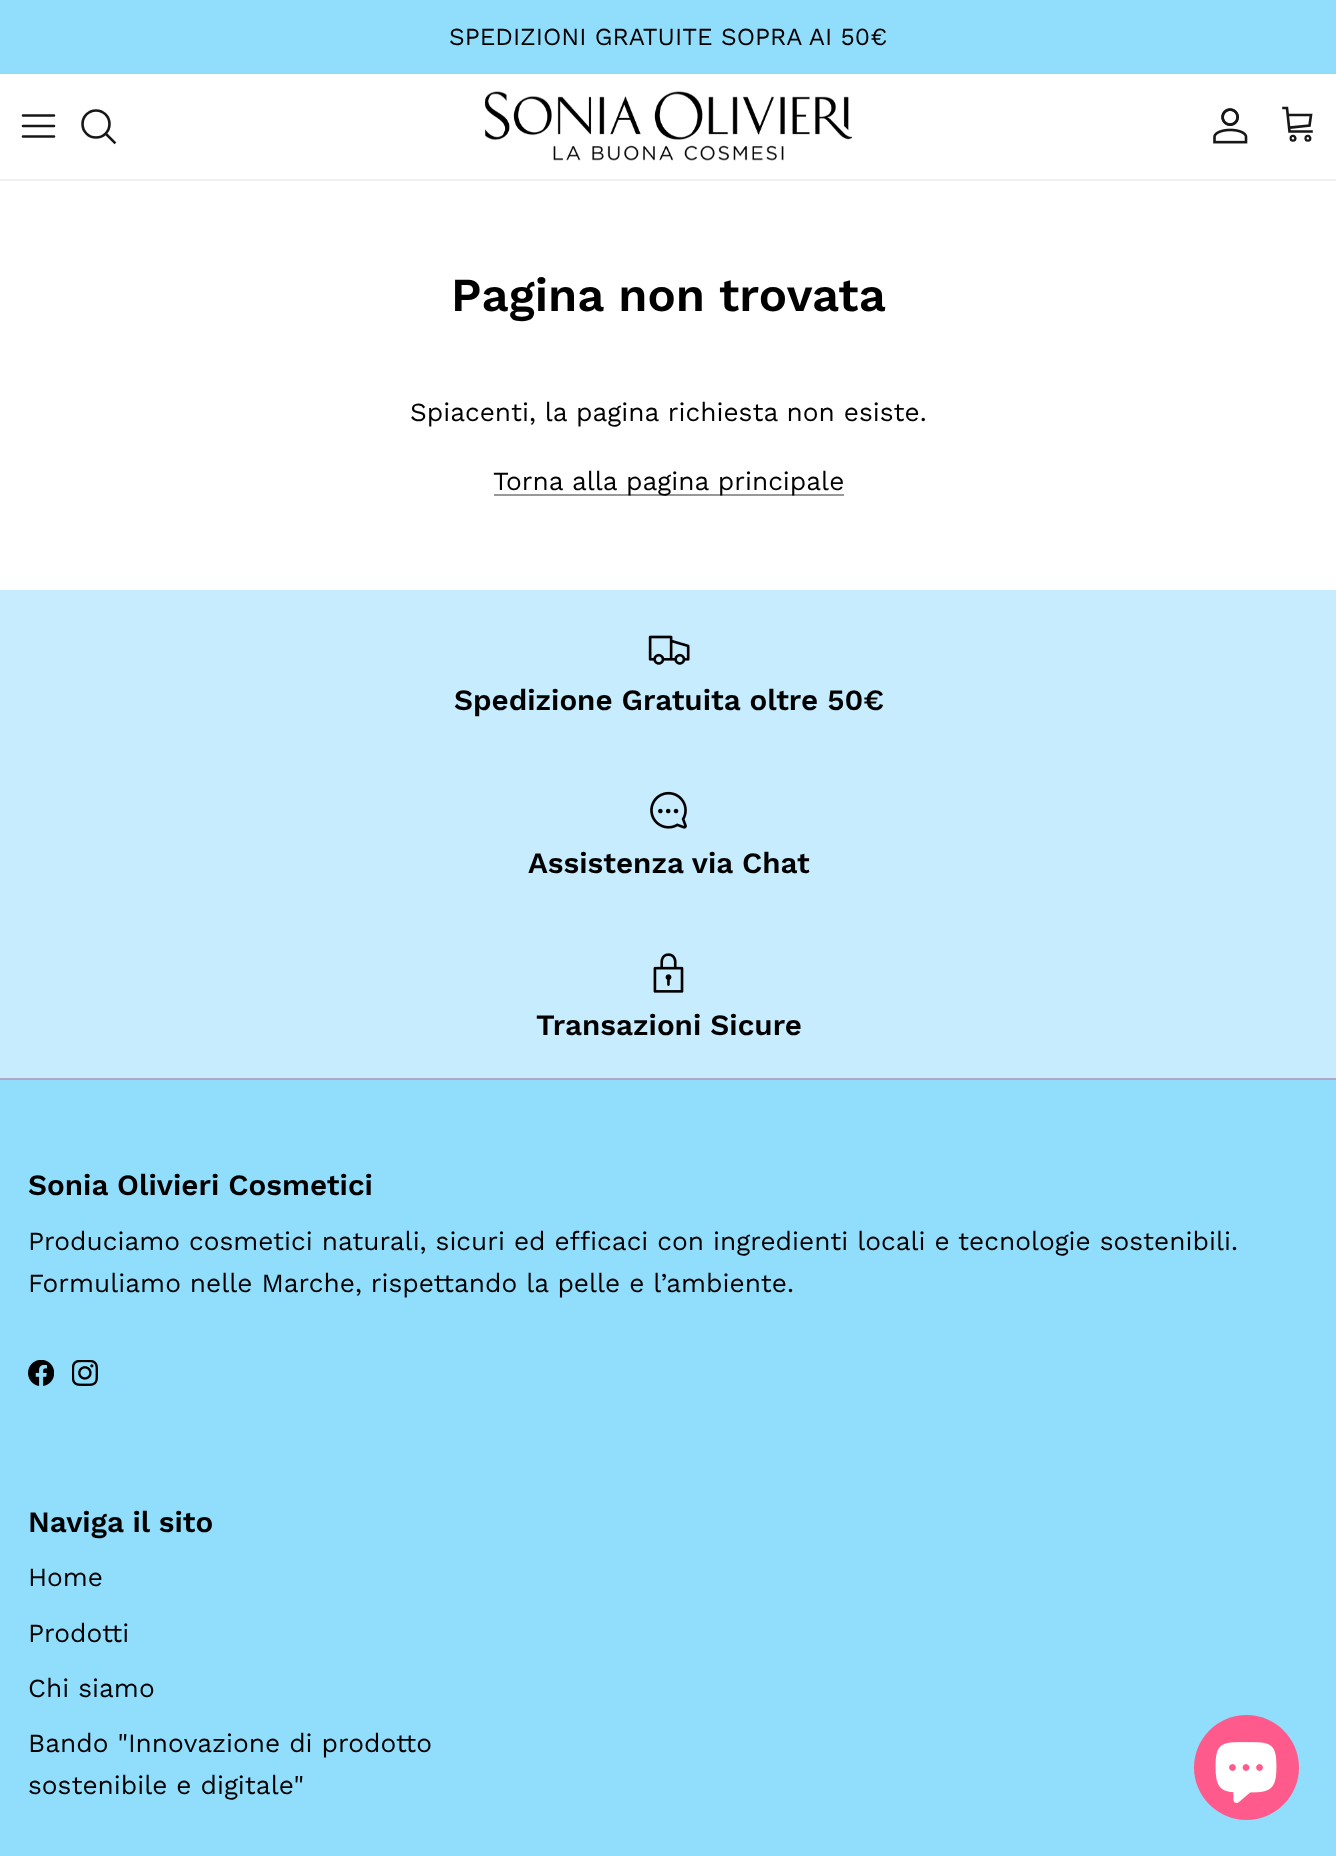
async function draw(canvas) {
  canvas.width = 1336
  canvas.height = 1856
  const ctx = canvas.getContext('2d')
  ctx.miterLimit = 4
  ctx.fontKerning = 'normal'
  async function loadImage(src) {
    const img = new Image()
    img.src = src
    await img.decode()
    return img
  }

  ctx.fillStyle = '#fff'
  ctx.fillRect(0, 0, 1336, 1856)
  ctx.fillStyle = '#90ddfc'
  ctx.fillRect(0, 0, 1336, 74)
  ctx.font = '24.5px Work Sans'
  ctx.fillStyle = '#000'
  ctx.fillText('SPEDIZIONI GRATUITE SOPRA AI 50€', 449, 45)
  ctx.fillStyle = '#efefef'
  ctx.fillRect(0, 179, 1336, 2)
  ctx.beginPath()
  ctx.moveTo(23, 126)
  ctx.lineTo(54, 126)
  ctx.moveTo(23, 115.5)
  ctx.lineTo(54, 115.5)
  ctx.moveTo(23, 136.5)
  ctx.lineTo(54, 136.5)
  ctx.strokeStyle = '#171717'
  ctx.lineWidth = 2.6
  ctx.lineCap = 'round'
  ctx.lineJoin = 'round'
  ctx.stroke()
  ctx.beginPath()
  ctx.arc(96, 124, 13.5, 0, 2 * Math.PI)
  ctx.stroke()
  ctx.beginPath()
  ctx.moveTo(106.5, 134.5)
  ctx.lineTo(114.5, 142.5)
  ctx.lineCap = 'square'
  ctx.lineJoin = 'miter'
  ctx.stroke()
  ctx.drawImage(await loadImage('image0.png'), 485, 91, 367, 70)
  ctx.drawImage(await loadImage('image1.png'), 1213, 108, 35, 36)
  ctx.beginPath()
  ctx.moveTo(1283.5, 108)
  ctx.lineTo(1287, 108)
  ctx.lineTo(1289.5, 131.5)
  ctx.lineTo(1311.5, 131.5)
  ctx.moveTo(1288.5, 115)
  ctx.lineTo(1311, 115)
  ctx.lineTo(1309.5, 125.5)
  ctx.lineTo(1291, 127.5)
  ctx.stroke()
  ctx.beginPath()
  ctx.arc(1293, 138.3, 2.4, 0, 2 * Math.PI)
  ctx.lineWidth = 2.2
  ctx.stroke()
  ctx.beginPath()
  ctx.arc(1307.9, 138.3, 2.4, 0, 2 * Math.PI)
  ctx.stroke()
  ctx.font = '600 47.25px Work Sans'
  ctx.fillStyle = '#000'
  ctx.fillText('Pagina non trovata', 451, 311)
  ctx.font = '26.25px Work Sans'
  ctx.fillText('Spiacenti, la pagina richiesta non esiste.', 410, 421)
  ctx.fillStyle = '#999'
  ctx.fillRect(494, 494, 350, 2)
  ctx.fillStyle = '#000'
  ctx.fillText('Torna alla pagina principale', 493, 490)
  ctx.fillStyle = '#c6ecfe'
  ctx.fillRect(0, 590, 1336, 488)
  ctx.drawImage(await loadImage('image2.png'), 648, 635, 42, 30)
  ctx.font = '600 29.6px Work Sans'
  ctx.fillStyle = '#000'
  ctx.fillText('Spedizione Gratuita oltre 50€', 454, 710)
  ctx.drawImage(await loadImage('image3.png'), 650, 791, 37, 38)
  ctx.fillText('Assistenza via Chat', 528, 873)
  ctx.drawImage(await loadImage('image4.png'), 653, 953, 31, 40)
  ctx.fillText('Transazioni Sicure', 536, 1035)
  ctx.fillStyle = '#90ddfc'
  ctx.fillRect(0, 1080, 1336, 776)
  ctx.fillStyle = '#b3a5c8'
  ctx.fillRect(0, 1078, 1336, 2)
  ctx.fillStyle = '#000'
  ctx.fillText('Sonia Olivieri Cosmetici', 28, 1195)
  ctx.font = '26.25px Work Sans'
  ctx.fillText('Produciamo cosmetici naturali, sicuri ed efficaci con ingredienti locali e tecnologie sostenibili.', 28, 1250)
  ctx.fillText('Formuliamo nelle Marche, rispettando la pelle e l’ambiente.', 28, 1292)
  ctx.drawImage(await loadImage('image5.png'), 28, 1360, 26, 26)
  ctx.drawImage(await loadImage('image6.png'), 72, 1360, 26, 26)
  ctx.font = '600 29.6px Work Sans'
  ctx.fillText('Naviga il sito', 28, 1532)
  ctx.font = '26.25px Work Sans'
  ctx.fillText('Home', 28, 1586)
  ctx.fillText('Prodotti', 28, 1642)
  ctx.fillText('Chi siamo', 28, 1697)
  ctx.fillText('Bando "Innovazione di prodotto', 28, 1752)
  ctx.fillText('sostenibile e digitale"', 28, 1794)
  ctx.fillStyle = '#fe5b8c'
  ctx.beginPath()
  ctx.arc(1246.5, 1767.5, 52.5, 0, 2 * Math.PI)
  ctx.fill()
  ctx.drawImage(await loadImage('image7.png'), 1215, 1742, 62, 61)
}

draw(document.querySelector('canvas'))
